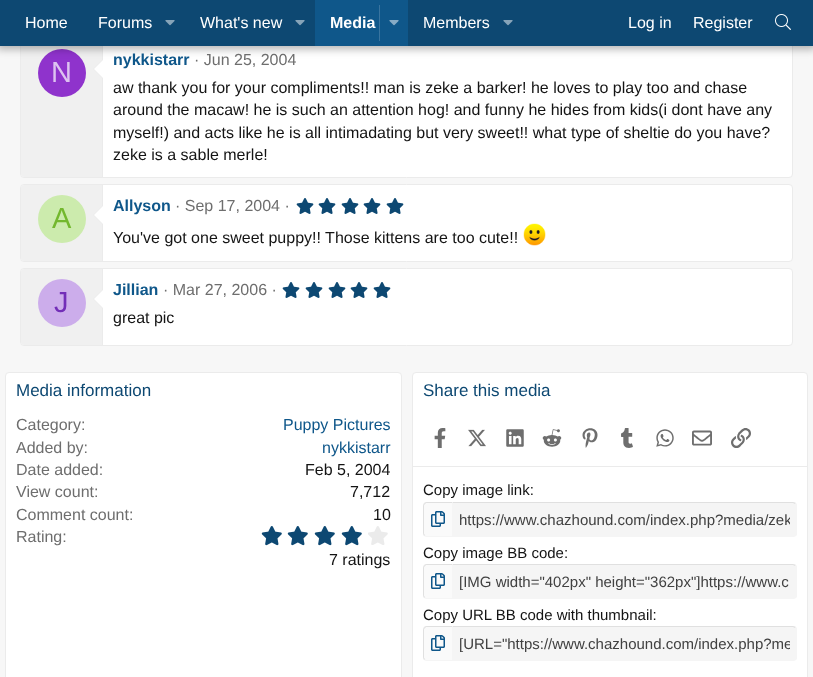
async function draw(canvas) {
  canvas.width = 813
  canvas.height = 677
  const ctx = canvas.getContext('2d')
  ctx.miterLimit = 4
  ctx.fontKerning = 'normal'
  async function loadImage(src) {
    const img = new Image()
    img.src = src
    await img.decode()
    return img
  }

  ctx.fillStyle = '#f7f7f7'
  ctx.fillRect(0, 0, 813, 677)
  ctx.fillStyle = '#fff'
  ctx.beginPath()
  ctx.roundRect(20.5, 38.5, 772, 139, 3.5)
  ctx.fill()
  ctx.strokeStyle = '#ebebeb'
  ctx.stroke()
  ctx.fillStyle = '#f0f0f0'
  ctx.beginPath()
  ctx.roundRect(21, 39, 82, 138, [3, 0, 0, 3])
  ctx.fill()
  ctx.fillStyle = '#ebebeb'
  ctx.fillRect(102, 39, 1, 138)
  ctx.fillStyle = '#8f33cc'
  ctx.beginPath()
  ctx.arc(62, 73, 24, 0, 2 * Math.PI)
  ctx.fill()
  ctx.fillStyle = '#ebebeb'
  ctx.beginPath()
  ctx.moveTo(103, 59)
  ctx.lineTo(103, 79)
  ctx.lineTo(93, 69)
  ctx.closePath()
  ctx.fill()
  ctx.fillStyle = '#fff'
  ctx.beginPath()
  ctx.moveTo(103, 60)
  ctx.lineTo(103, 78)
  ctx.lineTo(94, 69)
  ctx.closePath()
  ctx.fill()
  ctx.fillStyle = '#0000004d'
  ctx.filter = 'blur(4px)'
  ctx.beginPath()
  ctx.rect(-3, -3, 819, 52)
  ctx.fill()
  ctx.filter = 'none'
  ctx.fillStyle = '#0d4872'
  ctx.fillRect(0, 0, 813, 46)
  ctx.font = '16px Liberation Sans'
  ctx.fillStyle = '#fff'
  ctx.fillText('Home', 25, 28)
  ctx.fillText('Forums', 98, 28)
  ctx.drawImage(await loadImage('image0.png'), 165, 20, 10, 6)
  ctx.fillText('What\'s new', 200, 28)
  ctx.drawImage(await loadImage('image0.png'), 295, 20, 10, 6)
  ctx.fillStyle = '#0f578a'
  ctx.fillRect(315, 0, 93, 46)
  ctx.font = 'bold 16px Liberation Sans'
  ctx.fillStyle = '#fff'
  ctx.fillText('Media', 330, 28)
  ctx.fillStyle = '#39749f'
  ctx.fillRect(379, 5, 1, 36)
  ctx.drawImage(await loadImage('image1.png'), 389, 20, 10, 6)
  ctx.font = '16px Liberation Sans'
  ctx.fillStyle = '#fff'
  ctx.fillText('Members', 423, 28)
  ctx.drawImage(await loadImage('image0.png'), 503, 20, 10, 6)
  ctx.fillText('Log in', 628, 28)
  ctx.fillText('Register', 693, 28)
  ctx.drawImage(await loadImage('image2.png'), 775, 14, 16, 16)
  ctx.font = '29px Liberation Sans'
  ctx.fillStyle = '#ddc2f0'
  ctx.fillText('N', 51, 82)
  ctx.font = 'bold 16px Liberation Sans'
  ctx.fillStyle = '#0f578a'
  ctx.fillText('nykkistarr', 113, 65)
  ctx.font = '16px Liberation Sans'
  ctx.fillStyle = '#6e6e6e'
  ctx.fillText('· Jun 25, 2004', 194, 65)
  ctx.fillStyle = '#141414'
  ctx.fillText('aw thank you for your compliments!! man is zeke a barker! he loves to play too and chase', 113, 93)
  ctx.fillText('around the macaw! he is such an attention hog! and funny he hides from kids(i dont have any', 113, 115)
  ctx.fillText('myself!) and acts like he is all intimadating but very sweet!! what type of sheltie do you have?', 113, 138)
  ctx.fillText('zeke is a sable merle!', 113, 160)
  ctx.fillStyle = '#fff'
  ctx.beginPath()
  ctx.roundRect(20.5, 184.5, 772, 77, 3.5)
  ctx.fill()
  ctx.stroke()
  ctx.fillStyle = '#f0f0f0'
  ctx.beginPath()
  ctx.roundRect(21, 185, 82, 76, [3, 0, 0, 3])
  ctx.fill()
  ctx.fillStyle = '#ebebeb'
  ctx.fillRect(102, 185, 1, 76)
  ctx.fillStyle = '#ccebad'
  ctx.beginPath()
  ctx.arc(62, 219, 24, 0, 2 * Math.PI)
  ctx.fill()
  ctx.font = '29px Liberation Sans'
  ctx.fillStyle = '#73b82e'
  ctx.fillText('A', 52, 228)
  ctx.fillStyle = '#ebebeb'
  ctx.beginPath()
  ctx.moveTo(103, 205)
  ctx.lineTo(103, 225)
  ctx.lineTo(93, 215)
  ctx.closePath()
  ctx.fill()
  ctx.fillStyle = '#fff'
  ctx.beginPath()
  ctx.moveTo(103, 206)
  ctx.lineTo(103, 224)
  ctx.lineTo(94, 215)
  ctx.closePath()
  ctx.fill()
  ctx.font = 'bold 16px Liberation Sans'
  ctx.fillStyle = '#0f578a'
  ctx.fillText('Allyson', 113, 211)
  ctx.font = '16px Liberation Sans'
  ctx.fillStyle = '#6e6e6e'
  ctx.fillText('· Sep 17, 2004 ·', 175, 211)
  ctx.drawImage(await loadImage('image3.png'), 296, 198, 18, 16)
  ctx.drawImage(await loadImage('image3.png'), 318, 198, 18, 16)
  ctx.drawImage(await loadImage('image3.png'), 341, 198, 18, 16)
  ctx.drawImage(await loadImage('image3.png'), 363, 198, 18, 16)
  ctx.drawImage(await loadImage('image3.png'), 386, 198, 18, 16)
  ctx.fillStyle = '#141414'
  ctx.fillText('You\'ve got one sweet puppy!! Those kittens are too cute!!', 113, 243)
  ctx.drawImage(await loadImage('image4.png'), 523, 223, 23, 23)
  ctx.fillStyle = '#fff'
  ctx.beginPath()
  ctx.roundRect(20.5, 268.5, 772, 77, 3.5)
  ctx.fill()
  ctx.stroke()
  ctx.fillStyle = '#f0f0f0'
  ctx.beginPath()
  ctx.roundRect(21, 269, 82, 76, [3, 0, 0, 3])
  ctx.fill()
  ctx.fillStyle = '#ebebeb'
  ctx.fillRect(102, 269, 1, 76)
  ctx.fillStyle = '#ccadeb'
  ctx.beginPath()
  ctx.arc(62, 303, 24, 0, 2 * Math.PI)
  ctx.fill()
  ctx.font = '29px Liberation Sans'
  ctx.fillStyle = '#732eb8'
  ctx.fillText('J', 54, 312)
  ctx.fillStyle = '#ebebeb'
  ctx.beginPath()
  ctx.moveTo(103, 289)
  ctx.lineTo(103, 309)
  ctx.lineTo(93, 299)
  ctx.closePath()
  ctx.fill()
  ctx.fillStyle = '#fff'
  ctx.beginPath()
  ctx.moveTo(103, 290)
  ctx.lineTo(103, 308)
  ctx.lineTo(94, 299)
  ctx.closePath()
  ctx.fill()
  ctx.font = 'bold 16px Liberation Sans'
  ctx.fillStyle = '#0f578a'
  ctx.fillText('Jillian', 113, 295)
  ctx.font = '16px Liberation Sans'
  ctx.fillStyle = '#6e6e6e'
  ctx.fillText('· Mar 27, 2006 ·', 163, 295)
  ctx.drawImage(await loadImage('image3.png'), 282, 282, 18, 16)
  ctx.drawImage(await loadImage('image3.png'), 305, 282, 18, 16)
  ctx.drawImage(await loadImage('image3.png'), 328, 282, 18, 16)
  ctx.drawImage(await loadImage('image3.png'), 350, 282, 18, 16)
  ctx.drawImage(await loadImage('image3.png'), 373, 282, 18, 16)
  ctx.fillStyle = '#141414'
  ctx.fillText('great pic', 113, 323)
  ctx.fillStyle = '#fff'
  ctx.beginPath()
  ctx.roundRect(5.5, 372.5, 396, 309, 3.5)
  ctx.fill()
  ctx.stroke()
  ctx.font = '17px Liberation Sans'
  ctx.fillStyle = '#0d4872'
  ctx.fillText('Media information', 16, 396)
  ctx.font = '16px Liberation Sans'
  ctx.fillStyle = '#6e6e6e'
  ctx.fillText('Category:', 16, 430)
  ctx.fillStyle = '#0f578a'
  ctx.fillText('Puppy Pictures', 283, 430)
  ctx.fillStyle = '#6e6e6e'
  ctx.fillText('Added by:', 16, 453)
  ctx.fillStyle = '#0f578a'
  ctx.fillText('nykkistarr', 322, 453)
  ctx.fillStyle = '#6e6e6e'
  ctx.fillText('Date added:', 16, 475)
  ctx.fillStyle = '#141414'
  ctx.fillText('Feb 5, 2004', 305, 475)
  ctx.fillStyle = '#6e6e6e'
  ctx.fillText('View count:', 16, 497)
  ctx.fillStyle = '#141414'
  ctx.fillText('7,712', 350, 497)
  ctx.fillStyle = '#6e6e6e'
  ctx.fillText('Comment count:', 16, 520)
  ctx.fillStyle = '#141414'
  ctx.fillText('10', 373, 520)
  ctx.fillStyle = '#6e6e6e'
  ctx.fillText('Rating:', 16, 542)
  ctx.drawImage(await loadImage('image5.png'), 261, 526, 21, 20)
  ctx.drawImage(await loadImage('image5.png'), 287, 526, 21, 20)
  ctx.drawImage(await loadImage('image5.png'), 314, 526, 21, 20)
  ctx.drawImage(await loadImage('image5.png'), 341, 526, 21, 20)
  ctx.drawImage(await loadImage('image6.png'), 368, 526, 20, 19)
  ctx.fillStyle = '#141414'
  ctx.fillText('7 ratings', 329, 565)
  ctx.fillStyle = '#fff'
  ctx.beginPath()
  ctx.roundRect(412.5, 372.5, 395, 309, 3.5)
  ctx.fill()
  ctx.stroke()
  ctx.font = '17px Liberation Sans'
  ctx.fillStyle = '#0d4872'
  ctx.fillText('Share this media', 423, 396)
  ctx.drawImage(await loadImage('image7.png'), 434, 428, 12, 20)
  ctx.drawImage(await loadImage('image8.png'), 468, 429, 18, 18)
  ctx.drawImage(await loadImage('image9.png'), 506, 429, 18, 18)
  ctx.drawImage(await loadImage('image10.png'), 542, 429, 20, 18)
  ctx.drawImage(await loadImage('image11.png'), 582, 428, 16, 20)
  ctx.drawImage(await loadImage('image12.png'), 621, 428, 12, 20)
  ctx.drawImage(await loadImage('image13.png'), 656, 429, 18, 18)
  ctx.drawImage(await loadImage('image14.png'), 692, 430, 20, 16)
  ctx.drawImage(await loadImage('image15.png'), 731, 428, 20, 20)
  ctx.fillStyle = '#ebebeb'
  ctx.fillRect(413, 466, 394, 1)
  ctx.font = '15px Liberation Sans'
  ctx.fillStyle = '#141414'
  ctx.fillText('Copy image link:', 423, 495)
  ctx.fillStyle = '#fafafa'
  ctx.beginPath()
  ctx.roundRect(423, 502, 29, 35, [4, 0, 0, 4])
  ctx.fill()
  ctx.fillStyle = '#e0e0e0'
  ctx.beginPath()
  ctx.moveTo(427, 502)
  ctx.bezierCurveTo(426, 502, 425, 502.5, 424, 503)
  ctx.lineTo(425, 504)
  ctx.bezierCurveTo(425.5, 503.5, 426, 503, 427, 503)
  ctx.lineTo(452, 503)
  ctx.lineTo(452, 502)
  ctx.closePath()
  ctx.fill()
  ctx.fillStyle = '#f5f5f5'
  ctx.beginPath()
  ctx.moveTo(452, 537)
  ctx.lineTo(452, 536)
  ctx.lineTo(427, 536)
  ctx.bezierCurveTo(426, 536, 425.5, 535.5, 425, 535)
  ctx.lineTo(424, 536)
  ctx.bezierCurveTo(425, 536.5, 426, 537, 427, 537)
  ctx.closePath()
  ctx.fill()
  ctx.fillStyle = '#e0e0e0'
  ctx.beginPath()
  ctx.moveTo(423, 506)
  ctx.lineTo(423, 533)
  ctx.bezierCurveTo(423, 534, 423.5, 535, 424, 536)
  ctx.lineTo(425, 535)
  ctx.bezierCurveTo(424.5, 534.5, 424, 534, 424, 533)
  ctx.lineTo(424, 506)
  ctx.bezierCurveTo(424, 505, 424.5, 504.5, 425, 504)
  ctx.lineTo(424, 503)
  ctx.bezierCurveTo(423.5, 504, 423, 505, 423, 506)
  ctx.closePath()
  ctx.fill()
  ctx.drawImage(await loadImage('image16.png'), 431, 511, 14, 16)
  ctx.fillStyle = '#f5f5f5'
  ctx.beginPath()
  ctx.roundRect(452, 502, 345, 35, [0, 4, 4, 0])
  ctx.fill()
  ctx.fillStyle = '#e0e0e0'
  ctx.beginPath()
  ctx.moveTo(452, 502)
  ctx.lineTo(453, 503)
  ctx.lineTo(793, 503)
  ctx.lineTo(795, 504)
  ctx.lineTo(796, 503)
  ctx.lineTo(793, 502)
  ctx.closePath()
  ctx.fill()
  ctx.fillStyle = '#f5f5f5'
  ctx.beginPath()
  ctx.moveTo(797, 533)
  ctx.lineTo(797, 506)
  ctx.bezierCurveTo(797, 505, 796.5, 504, 796, 503)
  ctx.lineTo(795, 504)
  ctx.bezierCurveTo(796, 504, 796, 505, 796, 506)
  ctx.lineTo(796, 533)
  ctx.bezierCurveTo(796, 534, 796, 535, 795, 535)
  ctx.lineTo(796, 536)
  ctx.bezierCurveTo(796.5, 535, 797, 534, 797, 533)
  ctx.closePath()
  ctx.fill()
  ctx.beginPath()
  ctx.moveTo(452, 502)
  ctx.lineTo(452, 537)
  ctx.lineTo(453, 536)
  ctx.lineTo(453, 503)
  ctx.closePath()
  ctx.fill()
  ctx.save()
  ctx.beginPath()
  ctx.rect(459, 509, 331, 21)
  ctx.clip()
  ctx.fillStyle = '#414141'
  ctx.fillText('https://www.chazhound.com/index.php?media/zek', 459, 525)
  ctx.restore()
  ctx.fillStyle = '#141414'
  ctx.fillText('Copy image BB code:', 423, 558)
  ctx.fillStyle = '#fafafa'
  ctx.beginPath()
  ctx.roundRect(423, 564, 29, 35, [4, 0, 0, 4])
  ctx.fill()
  ctx.fillStyle = '#e0e0e0'
  ctx.beginPath()
  ctx.moveTo(427, 564)
  ctx.bezierCurveTo(426, 564, 425, 564.5, 424, 565)
  ctx.lineTo(425, 566)
  ctx.bezierCurveTo(425.5, 565.5, 426, 565, 427, 565)
  ctx.lineTo(452, 565)
  ctx.lineTo(452, 564)
  ctx.closePath()
  ctx.fill()
  ctx.fillStyle = '#f5f5f5'
  ctx.beginPath()
  ctx.moveTo(452, 599)
  ctx.lineTo(452, 598)
  ctx.lineTo(427, 598)
  ctx.bezierCurveTo(426, 598, 425.5, 597.5, 425, 597)
  ctx.lineTo(424, 598)
  ctx.bezierCurveTo(425, 598.5, 426, 599, 427, 599)
  ctx.closePath()
  ctx.fill()
  ctx.fillStyle = '#e0e0e0'
  ctx.beginPath()
  ctx.moveTo(423, 568)
  ctx.lineTo(423, 595)
  ctx.bezierCurveTo(423, 596, 423.5, 597, 424, 598)
  ctx.lineTo(425, 597)
  ctx.bezierCurveTo(424.5, 596.5, 424, 596, 424, 595)
  ctx.lineTo(424, 568)
  ctx.bezierCurveTo(424, 567, 424.5, 566.5, 425, 566)
  ctx.lineTo(424, 565)
  ctx.bezierCurveTo(423.5, 566, 423, 567, 423, 568)
  ctx.closePath()
  ctx.fill()
  ctx.drawImage(await loadImage('image16.png'), 431, 573, 14, 16)
  ctx.fillStyle = '#f5f5f5'
  ctx.beginPath()
  ctx.roundRect(452, 564, 345, 35, [0, 4, 4, 0])
  ctx.fill()
  ctx.fillStyle = '#e0e0e0'
  ctx.beginPath()
  ctx.moveTo(452, 564)
  ctx.lineTo(453, 565)
  ctx.lineTo(793, 565)
  ctx.lineTo(795, 566)
  ctx.lineTo(796, 565)
  ctx.lineTo(793, 564)
  ctx.closePath()
  ctx.fill()
  ctx.fillStyle = '#f5f5f5'
  ctx.beginPath()
  ctx.moveTo(797, 595)
  ctx.lineTo(797, 568)
  ctx.bezierCurveTo(797, 567, 796.5, 566, 796, 565)
  ctx.lineTo(795, 566)
  ctx.bezierCurveTo(796, 566, 796, 567, 796, 568)
  ctx.lineTo(796, 595)
  ctx.bezierCurveTo(796, 596, 796, 597, 795, 597)
  ctx.lineTo(796, 598)
  ctx.bezierCurveTo(796.5, 597, 797, 596, 797, 595)
  ctx.closePath()
  ctx.fill()
  ctx.beginPath()
  ctx.moveTo(452, 564)
  ctx.lineTo(452, 599)
  ctx.lineTo(453, 598)
  ctx.lineTo(453, 565)
  ctx.closePath()
  ctx.fill()
  ctx.fillStyle = '#414141'
  ctx.fillText('[IMG width="402px" height="362px"]https://www.c', 459, 587)
  ctx.fillStyle = '#141414'
  ctx.fillText('Copy URL BB code with thumbnail:', 423, 620)
  ctx.fillStyle = '#fafafa'
  ctx.beginPath()
  ctx.roundRect(423, 626, 29, 35, [4, 0, 0, 4])
  ctx.fill()
  ctx.fillStyle = '#e0e0e0'
  ctx.beginPath()
  ctx.moveTo(427, 626)
  ctx.bezierCurveTo(426, 626, 425, 626.5, 424, 627)
  ctx.lineTo(425, 628)
  ctx.bezierCurveTo(425.5, 627.5, 426, 627, 427, 627)
  ctx.lineTo(452, 627)
  ctx.lineTo(452, 626)
  ctx.closePath()
  ctx.fill()
  ctx.fillStyle = '#f5f5f5'
  ctx.beginPath()
  ctx.moveTo(452, 661)
  ctx.lineTo(452, 660)
  ctx.lineTo(427, 660)
  ctx.bezierCurveTo(426, 660, 425.5, 659.5, 425, 659)
  ctx.lineTo(424, 660)
  ctx.bezierCurveTo(425, 660.5, 426, 661, 427, 661)
  ctx.closePath()
  ctx.fill()
  ctx.fillStyle = '#e0e0e0'
  ctx.beginPath()
  ctx.moveTo(423, 630)
  ctx.lineTo(423, 657)
  ctx.bezierCurveTo(423, 658, 423.5, 659, 424, 660)
  ctx.lineTo(425, 659)
  ctx.bezierCurveTo(424.5, 658.5, 424, 658, 424, 657)
  ctx.lineTo(424, 630)
  ctx.bezierCurveTo(424, 629, 424.5, 628.5, 425, 628)
  ctx.lineTo(424, 627)
  ctx.bezierCurveTo(423.5, 628, 423, 629, 423, 630)
  ctx.closePath()
  ctx.fill()
  ctx.drawImage(await loadImage('image16.png'), 431, 635, 14, 16)
  ctx.fillStyle = '#f5f5f5'
  ctx.beginPath()
  ctx.roundRect(452, 626, 345, 35, [0, 4, 4, 0])
  ctx.fill()
  ctx.fillStyle = '#e0e0e0'
  ctx.beginPath()
  ctx.moveTo(452, 626)
  ctx.lineTo(453, 627)
  ctx.lineTo(793, 627)
  ctx.lineTo(795, 628)
  ctx.lineTo(796, 627)
  ctx.lineTo(793, 626)
  ctx.closePath()
  ctx.fill()
  ctx.fillStyle = '#f5f5f5'
  ctx.beginPath()
  ctx.moveTo(797, 657)
  ctx.lineTo(797, 630)
  ctx.bezierCurveTo(797, 629, 796.5, 628, 796, 627)
  ctx.lineTo(795, 628)
  ctx.bezierCurveTo(796, 628, 796, 629, 796, 630)
  ctx.lineTo(796, 657)
  ctx.bezierCurveTo(796, 658, 796, 659, 795, 659)
  ctx.lineTo(796, 660)
  ctx.bezierCurveTo(796.5, 659, 797, 658, 797, 657)
  ctx.closePath()
  ctx.fill()
  ctx.beginPath()
  ctx.moveTo(452, 626)
  ctx.lineTo(452, 661)
  ctx.lineTo(453, 660)
  ctx.lineTo(453, 627)
  ctx.closePath()
  ctx.fill()
  ctx.save()
  ctx.beginPath()
  ctx.rect(459, 633, 331, 21)
  ctx.clip()
  ctx.fillStyle = '#414141'
  ctx.fillText('[URL="https://www.chazhound.com/index.php?me', 459, 649)
  ctx.restore()
}

draw(document.querySelector('canvas'))
